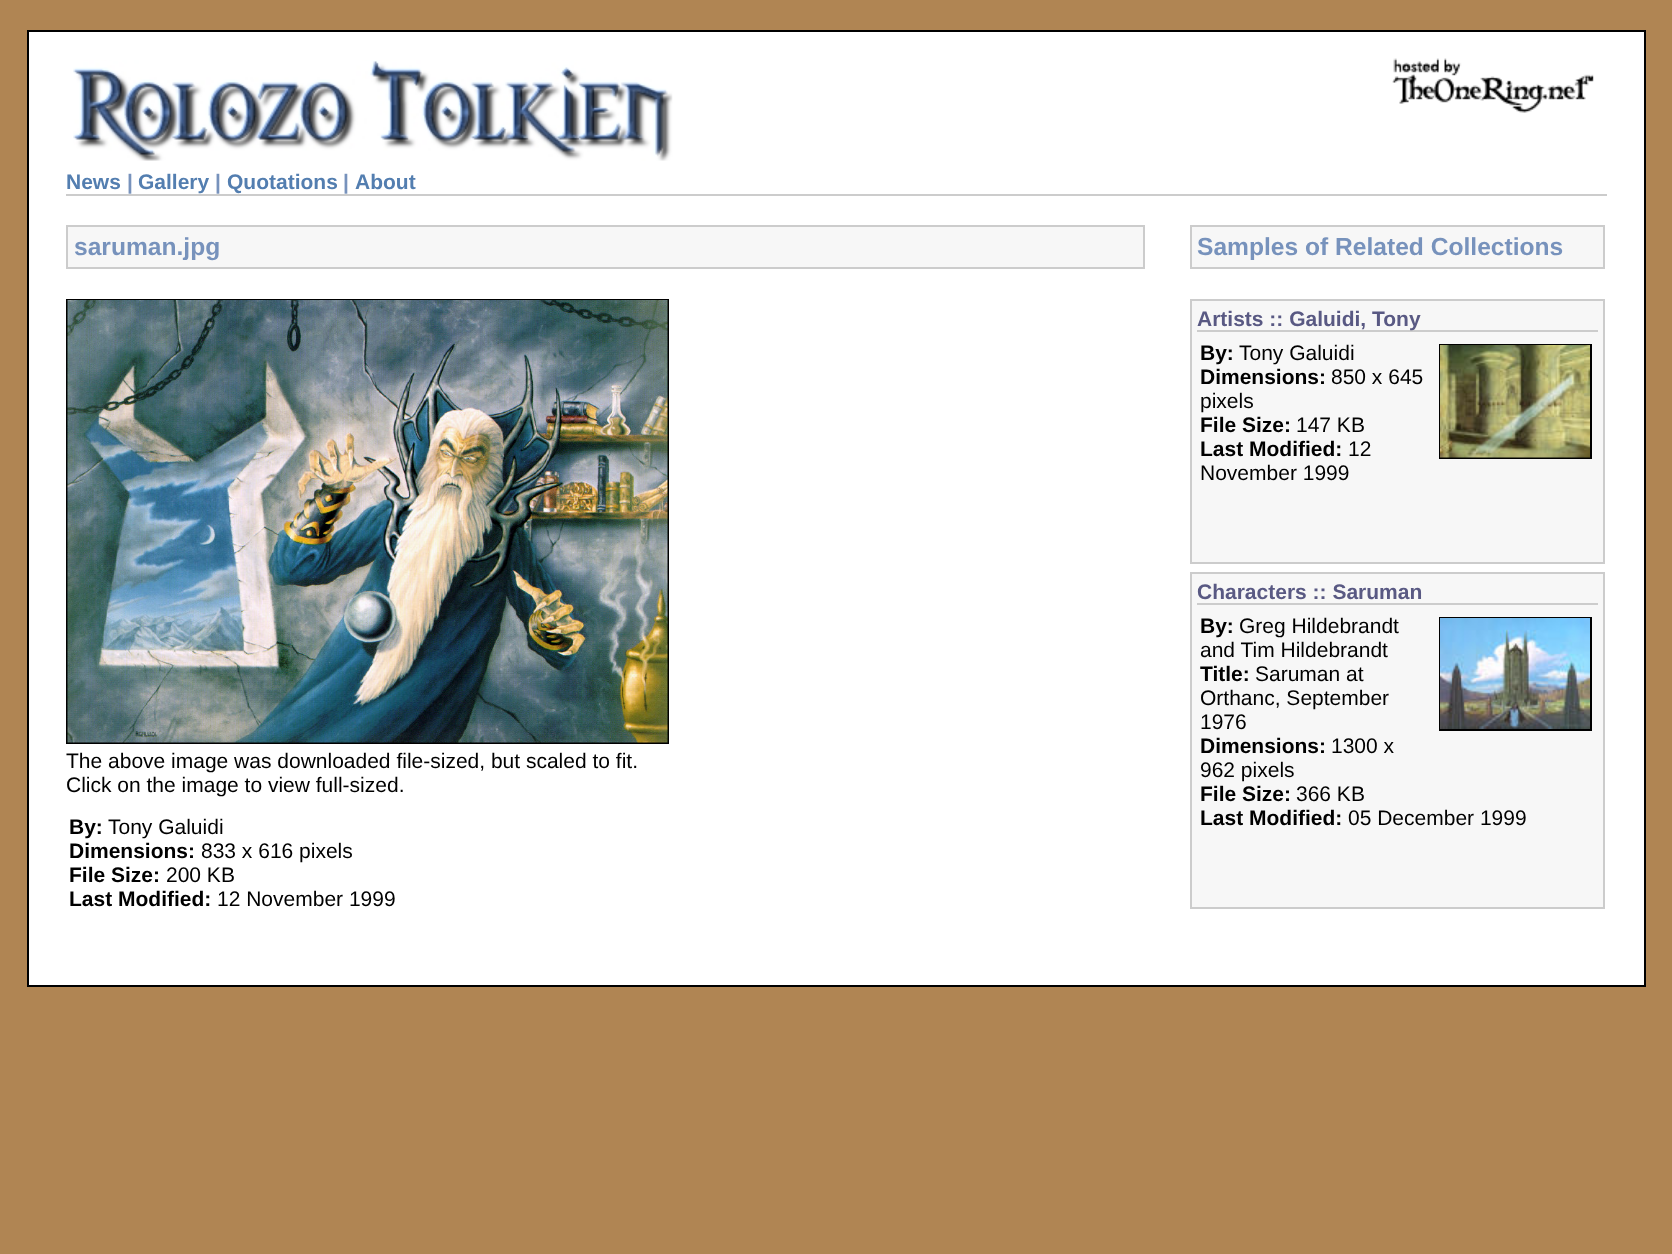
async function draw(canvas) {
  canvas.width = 1672
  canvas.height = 1254
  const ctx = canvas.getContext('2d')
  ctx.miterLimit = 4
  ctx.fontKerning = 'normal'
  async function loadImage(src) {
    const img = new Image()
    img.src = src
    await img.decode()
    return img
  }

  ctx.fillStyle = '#b08553'
  ctx.fillRect(0, 0, 1672, 1254)
  ctx.fillStyle = '#fff'
  ctx.beginPath()
  ctx.rect(28, 31, 1617, 955)
  ctx.fill()
  ctx.strokeStyle = '#000'
  ctx.lineWidth = 2
  ctx.stroke()
  ctx.drawImage(await loadImage('image0.png'), 73, 60, 600, 101)
  ctx.drawImage(await loadImage('image1.png'), 1392, 58, 202, 55)
  ctx.fillStyle = '#ccc'
  ctx.fillRect(66, 194, 1541, 2)
  ctx.font = 'bold 21px Liberation Sans'
  ctx.fillStyle = '#537eb0'
  ctx.fillText('News', 66, 189)
  ctx.fillStyle = '#7792bc'
  ctx.fillText('|', 127, 189)
  ctx.fillStyle = '#537eb0'
  ctx.fillText('Gallery', 138, 189)
  ctx.fillStyle = '#7792bc'
  ctx.fillText('|', 215, 189)
  ctx.fillStyle = '#537eb0'
  ctx.fillText('Quotations', 227, 189)
  ctx.fillStyle = '#7792bc'
  ctx.fillText('|', 343, 189)
  ctx.fillStyle = '#537eb0'
  ctx.fillText('About', 355, 189)
  ctx.fillStyle = '#f7f7f7'
  ctx.beginPath()
  ctx.rect(67, 226, 1077, 42)
  ctx.fill()
  ctx.strokeStyle = '#ccc'
  ctx.stroke()
  ctx.font = 'bold 24.6px Liberation Sans'
  ctx.fillStyle = '#7792bc'
  ctx.fillText('saruman.jpg', 74, 255)
  ctx.strokeStyle = '#000'
  ctx.strokeRect(67, 300, 601, 443)
  ctx.drawImage(await loadImage('image2.png'), 67, 300, 601, 443)
  ctx.font = '21px Liberation Sans'
  ctx.fillStyle = '#000'
  ctx.fillText('The above image was downloaded file-sized, but scaled to fit.', 66, 768)
  ctx.fillText('Click on the image to view full-sized.', 66, 792)
  ctx.font = 'bold 21px Liberation Sans'
  ctx.fillText('By:', 69, 834)
  ctx.font = '21px Liberation Sans'
  ctx.fillText('Tony Galuidi', 108, 834)
  ctx.font = 'bold 21px Liberation Sans'
  ctx.fillText('Dimensions:', 69, 858)
  ctx.font = '21px Liberation Sans'
  ctx.fillText('833 x 616 pixels', 201, 858)
  ctx.font = 'bold 21px Liberation Sans'
  ctx.fillText('File Size:', 69, 882)
  ctx.font = '21px Liberation Sans'
  ctx.fillText('200 KB', 166, 882)
  ctx.font = 'bold 21px Liberation Sans'
  ctx.fillText('Last Modified:', 69, 906)
  ctx.font = '21px Liberation Sans'
  ctx.fillText('12 November 1999', 217, 906)
  ctx.fillStyle = '#f7f7f7'
  ctx.beginPath()
  ctx.rect(1191, 226, 413, 42)
  ctx.fill()
  ctx.strokeStyle = '#ccc'
  ctx.stroke()
  ctx.font = 'bold 24.6px Liberation Sans'
  ctx.fillStyle = '#7792bc'
  ctx.fillText('Samples of Related Collections', 1197, 255)
  ctx.fillStyle = '#f7f7f7'
  ctx.beginPath()
  ctx.rect(1191, 300, 413, 263)
  ctx.fill()
  ctx.stroke()
  ctx.fillStyle = '#ccc'
  ctx.fillRect(1197, 330, 401, 2)
  ctx.font = 'bold 21px Liberation Sans'
  ctx.fillStyle = '#595983'
  ctx.fillText('Artists :: Galuidi, Tony', 1197, 326)
  ctx.fillStyle = '#000'
  ctx.fillText('By:', 1200, 360)
  ctx.font = '21px Liberation Sans'
  ctx.fillText('Tony Galuidi', 1239, 360)
  ctx.font = 'bold 21px Liberation Sans'
  ctx.fillText('Dimensions:', 1200, 384)
  ctx.font = '21px Liberation Sans'
  ctx.fillText('850 x 645', 1331, 384)
  ctx.fillText('pixels', 1200, 408)
  ctx.font = 'bold 21px Liberation Sans'
  ctx.fillText('File Size:', 1200, 432)
  ctx.font = '21px Liberation Sans'
  ctx.fillText('147 KB', 1296, 432)
  ctx.font = 'bold 21px Liberation Sans'
  ctx.fillText('Last Modified:', 1200, 456)
  ctx.font = '21px Liberation Sans'
  ctx.fillText('12', 1348, 456)
  ctx.fillText('November 1999', 1200, 480)
  ctx.strokeStyle = '#000'
  ctx.strokeRect(1440, 345, 151, 113)
  ctx.drawImage(await loadImage('image3.png'), 1440, 345, 150, 113)
  ctx.fillStyle = '#f7f7f7'
  ctx.beginPath()
  ctx.rect(1191, 573, 413, 335)
  ctx.fill()
  ctx.strokeStyle = '#ccc'
  ctx.stroke()
  ctx.fillStyle = '#ccc'
  ctx.fillRect(1197, 603, 401, 2)
  ctx.font = 'bold 21px Liberation Sans'
  ctx.fillStyle = '#595983'
  ctx.fillText('Characters :: Saruman', 1197, 599)
  ctx.fillStyle = '#000'
  ctx.fillText('By:', 1200, 633)
  ctx.font = '21px Liberation Sans'
  ctx.fillText('Greg Hildebrandt', 1239, 633)
  ctx.fillText('and Tim Hildebrandt', 1200, 657)
  ctx.font = 'bold 21px Liberation Sans'
  ctx.fillText('Title:', 1200, 681)
  ctx.font = '21px Liberation Sans'
  ctx.fillText('Saruman at', 1255, 681)
  ctx.fillText('Orthanc, September', 1200, 705)
  ctx.fillText('1976', 1200, 729)
  ctx.font = 'bold 21px Liberation Sans'
  ctx.fillText('Dimensions:', 1200, 753)
  ctx.font = '21px Liberation Sans'
  ctx.fillText('1300 x', 1331, 753)
  ctx.fillText('962 pixels', 1200, 777)
  ctx.font = 'bold 21px Liberation Sans'
  ctx.fillText('File Size:', 1200, 801)
  ctx.font = '21px Liberation Sans'
  ctx.fillText('366 KB', 1296, 801)
  ctx.font = 'bold 21px Liberation Sans'
  ctx.fillText('Last Modified:', 1200, 825)
  ctx.font = '21px Liberation Sans'
  ctx.fillText('05 December 1999', 1348, 825)
  ctx.strokeStyle = '#000'
  ctx.strokeRect(1440, 618, 151, 112)
  ctx.drawImage(await loadImage('image4.png'), 1440, 618, 150, 111)
}

draw(document.querySelector('canvas'))
